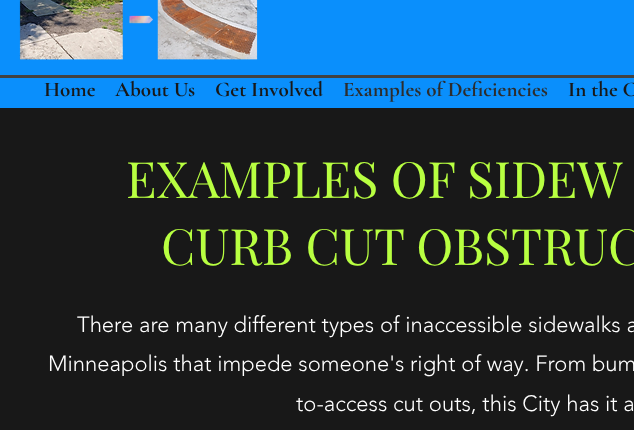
async function draw(canvas) {
  canvas.width = 634
  canvas.height = 430
  const ctx = canvas.getContext('2d')
  ctx.miterLimit = 4
  ctx.fontKerning = 'normal'
  async function loadImage(src) {
    const img = new Image()
    img.src = src
    await img.decode()
    return img
  }

  ctx.fillStyle = '#181818'
  ctx.fillRect(0, 0, 634, 430)
  ctx.fillStyle = '#0a8ffc'
  ctx.fillRect(0, 0, 634, 108)
  ctx.drawImage(await loadImage('image0.png'), 19, 0, 239, 60)
  ctx.fillStyle = '#424242'
  ctx.fillRect(0, 75, 634, 3)
  ctx.font = 'bold 21px Cormorant Garamond'
  ctx.fillStyle = '#181818'
  ctx.fillText('Home', 44, 96)
  ctx.fillText('About Us', 115, 96)
  ctx.fillText('Get Involved', 215, 96)
  ctx.fillStyle = '#2d2d2d'
  ctx.fillText('Examples of Deficiencies', 343, 96)
  ctx.fillStyle = '#181818'
  ctx.fillText('In the C', 568, 96)
  ctx.font = '50px Playfair Display'
  ctx.fillStyle = '#b8ff41'
  ctx.fillText('EXAMPLES OF SIDEW', 126, 198)
  ctx.fillText('CURB CUT OBSTRUC', 161, 265)
  ctx.font = '300 22px "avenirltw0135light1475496"'
  ctx.fillStyle = '#fff'
  ctx.fillText('There are many different types of inaccessible sidewalks a', 77, 332)
  ctx.fillText('Minneapolis that impede someone\'s right of way. From bum', 48, 371)
  ctx.fillText('to-access cut outs, this City has it a', 296, 411)
}

draw(document.querySelector('canvas'))
